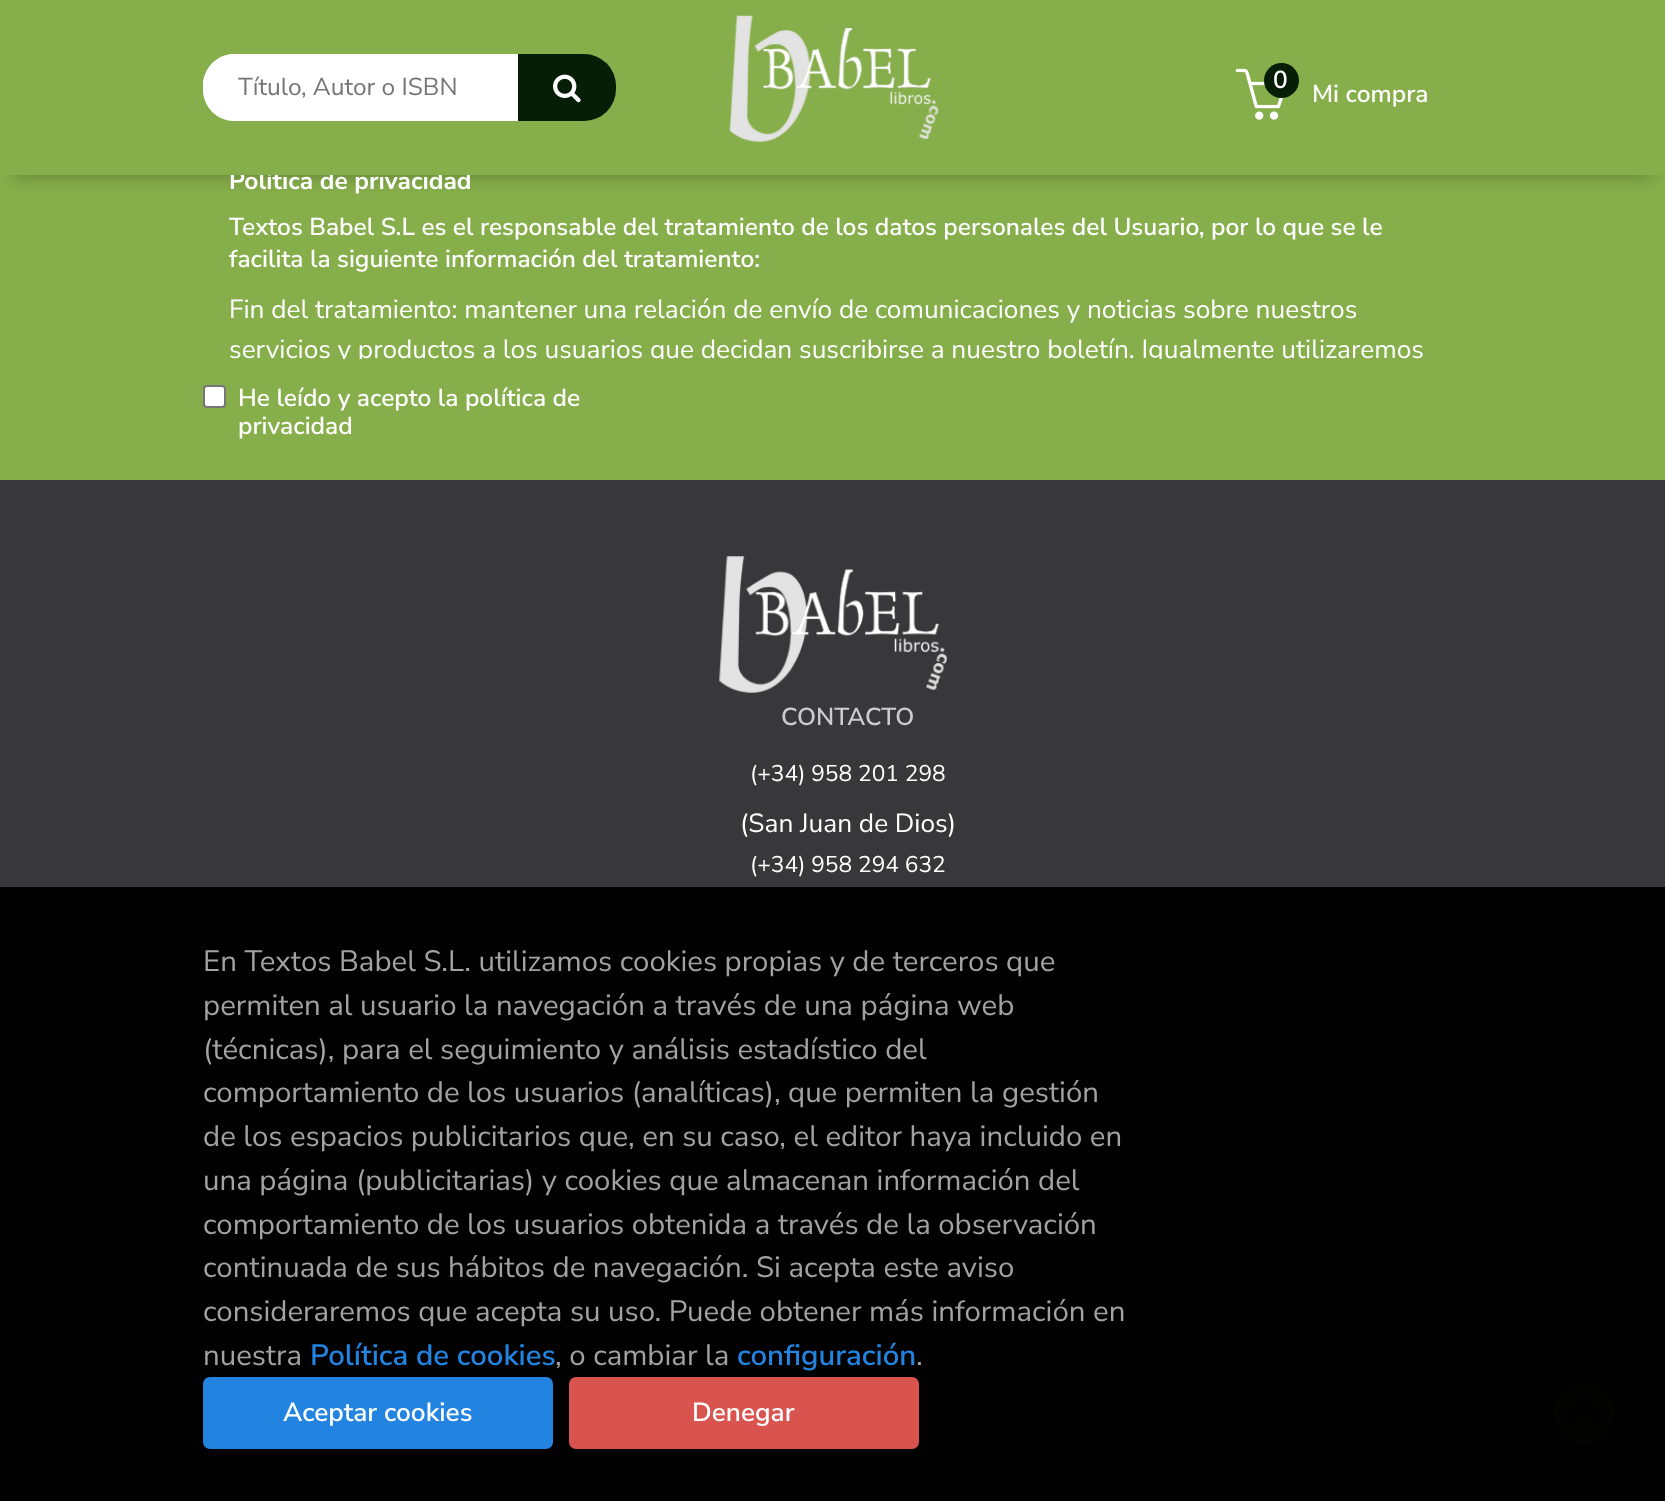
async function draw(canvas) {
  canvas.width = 1665
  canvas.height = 1501
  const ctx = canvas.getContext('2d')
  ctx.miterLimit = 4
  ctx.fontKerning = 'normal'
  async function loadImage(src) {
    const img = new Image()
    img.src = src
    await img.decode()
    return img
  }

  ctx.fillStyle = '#38383a'
  ctx.fillRect(0, 0, 1665, 1501)
  ctx.fillStyle = '#86ae4a'
  ctx.fillRect(0, 175, 1665, 305)
  ctx.fillStyle = '#0000004d'
  ctx.filter = 'blur(9px)'
  ctx.beginPath()
  ctx.rect(14, 28, 1638, 147)
  ctx.fill()
  ctx.filter = 'none'
  ctx.font = 'bold 24.5px Nunito Sans'
  ctx.fillStyle = '#fff'
  ctx.fillText('Política de privacidad', 229, 189)
  ctx.fillStyle = '#86ae4a'
  ctx.fillRect(0, 0, 1665, 175)
  ctx.fillStyle = '#fff'
  ctx.beginPath()
  ctx.roundRect(203, 54, 315, 67, [32, 0, 0, 32])
  ctx.fill()
  ctx.beginPath()
  ctx.moveTo(234, 54)
  ctx.lineTo(518, 54)
  ctx.lineTo(518, 121)
  ctx.lineTo(234, 121)
  ctx.bezierCurveTo(217, 121, 203, 107, 203, 89)
  ctx.lineTo(203, 86)
  ctx.bezierCurveTo(203, 68, 217, 54, 234, 54)
  ctx.closePath()
  ctx.moveTo(234, 58)
  ctx.lineTo(518, 58)
  ctx.lineTo(518, 117)
  ctx.lineTo(234, 117)
  ctx.bezierCurveTo(219, 117, 206, 105, 206, 89)
  ctx.lineTo(206, 86)
  ctx.bezierCurveTo(206, 70, 219, 58, 234, 58)
  ctx.closePath()
  ctx.fill('evenodd')
  ctx.font = '24.5px Nunito Sans'
  ctx.fillStyle = '#757575'
  ctx.fillText('Título, Autor o ISBN', 238, 95)
  ctx.fillStyle = '#051e05'
  ctx.beginPath()
  ctx.roundRect(518, 54, 98, 67, [0, 32, 32, 0])
  ctx.fill()
  ctx.drawImage(await loadImage('image0.png'), 553, 74, 28, 29)
  ctx.drawImage(await loadImage('image1.png'), 729, 15, 210, 127)
  ctx.drawImage(await loadImage('image2.png'), 1235, 68, 49, 52)
  ctx.beginPath()
  ctx.arc(1281.5, 80.5, 17.5, 0, 2 * Math.PI)
  ctx.fill()
  ctx.font = '600 24.5px Nunito Sans'
  ctx.fillStyle = '#fff'
  ctx.fillText('0', 1273, 88)
  ctx.fillText('Mi compra', 1312, 102)
  ctx.fillText('Textos Babel S.L es el responsable del tratamiento de los datos personales del Usuario, por lo que se le', 229, 235)
  ctx.fillText('facilita la siguiente información del tratamiento:', 229, 267)
  ctx.font = '26.25px Nunito Sans'
  ctx.fillText('Fin del tratamiento: mantener una relación de envío de comunicaciones y noticias sobre nuestros', 229, 318)
  ctx.save()
  ctx.beginPath()
  ctx.rect(203, 140, 1260, 219)
  ctx.clip()
  ctx.fillText('servicios y productos a los usuarios que decidan suscribirse a nuestro boletín. Igualmente utilizaremos', 229, 358)
  ctx.restore()
  ctx.beginPath()
  ctx.roundRect(204, 386, 21, 21, 3)
  ctx.fill()
  ctx.strokeStyle = '#767676'
  ctx.lineWidth = 2
  ctx.stroke()
  ctx.font = '600 24.5px Nunito Sans'
  ctx.fillText('He leído y acepto la política de', 238, 406)
  ctx.fillText('privacidad', 238, 434)
  ctx.drawImage(await loadImage('image3.png'), 719, 556, 228, 137)
  ctx.fillStyle = '#ccc'
  ctx.fillText('CONTACTO', 781, 725)
  ctx.font = '22.75px Nunito Sans'
  ctx.fillStyle = '#fff'
  ctx.fillText('(+34) 958 201 298', 750, 781)
  ctx.font = '26.25px Nunito Sans'
  ctx.fillText('(San Juan de Dios)', 740, 832)
  ctx.font = '22.75px Nunito Sans'
  ctx.fillText('(+34) 958 294 632', 750, 872)
  ctx.fillStyle = '#86ae4a'
  ctx.beginPath()
  ctx.moveTo(1600, 1423)
  ctx.bezierCurveTo(1607, 1416, 1605, 1417, 1598, 1410)
  ctx.bezierCurveTo(1581, 1393, 1587, 1393, 1570, 1410)
  ctx.bezierCurveTo(1567, 1413, 1561, 1416, 1566, 1420)
  ctx.bezierCurveTo(1570, 1424, 1570, 1425, 1574, 1421)
  ctx.lineTo(1584, 1411)
  ctx.lineTo(1592, 1419)
  ctx.bezierCurveTo(1593, 1420, 1597, 1426, 1600, 1423)
  ctx.closePath()
  ctx.moveTo(1610, 1398)
  ctx.bezierCurveTo(1613, 1404, 1614, 1410, 1614, 1416)
  ctx.bezierCurveTo(1612, 1445, 1573, 1454, 1558, 1429)
  ctx.bezierCurveTo(1555, 1423, 1554, 1417, 1554, 1411)
  ctx.bezierCurveTo(1556, 1382, 1595, 1373, 1610, 1398)
  ctx.closePath()
  ctx.fill()
  ctx.fillStyle = '#000000fa'
  ctx.fillRect(0, 887, 1665, 614)
  ctx.font = '29.4px Nunito Sans'
  ctx.fillStyle = '#a2a2a2'
  ctx.fillText('En Textos Babel S.L. utilizamos cookies propias y de terceros que', 203, 971)
  ctx.fillText('permiten al usuario la navegación a través de una página web', 203, 1015)
  ctx.fillText('(técnicas), para el seguimiento y análisis estadístico del', 203, 1059)
  ctx.fillText('comportamiento de los usuarios (analíticas),', 203, 1102)
  ctx.fillText('que permiten la gestión', 788, 1102)
  ctx.fillText('de los espacios publicitarios que, en su caso, el editor haya incluido en', 203, 1146)
  ctx.fillText('una página', 203, 1190)
  ctx.fillText('(publicitarias) y cookies que almacenan información del', 356, 1190)
  ctx.fillText('comportamiento de los usuarios obtenida a través de la observación', 203, 1234)
  ctx.fillText('continuada de sus hábitos de navegación. Si acepta este aviso', 203, 1277)
  ctx.fillText('consideraremos que acepta su uso. Puede obtener más información en', 203, 1321)
  ctx.fillText('nuestra', 203, 1365)
  ctx.font = '600 29.4px Nunito Sans'
  ctx.fillStyle = '#2284e0'
  ctx.fillText('Política de cookies', 310, 1365)
  ctx.font = '29.4px Nunito Sans'
  ctx.fillStyle = '#a2a2a2'
  ctx.fillText(', o cambiar la', 555, 1365)
  ctx.font = '600 29.4px Nunito Sans'
  ctx.fillStyle = '#2284e0'
  ctx.fillText('configuración', 737, 1365)
  ctx.font = '29.4px Nunito Sans'
  ctx.fillStyle = '#a2a2a2'
  ctx.fillText('.', 916, 1365)
  ctx.fillStyle = '#2284e0'
  ctx.beginPath()
  ctx.roundRect(203, 1377, 350, 72, 7)
  ctx.fill()
  ctx.font = '600 26.25px Nunito Sans'
  ctx.fillStyle = '#fff'
  ctx.fillText('Aceptar cookies', 283, 1421)
  ctx.fillStyle = '#d9534f'
  ctx.beginPath()
  ctx.roundRect(570, 1378, 348, 70, 6)
  ctx.fill()
  ctx.strokeStyle = '#d9534f'
  ctx.stroke()
  ctx.fillStyle = '#fff'
  ctx.fillText('Denegar', 692, 1421)
}

draw(document.querySelector('canvas'))
